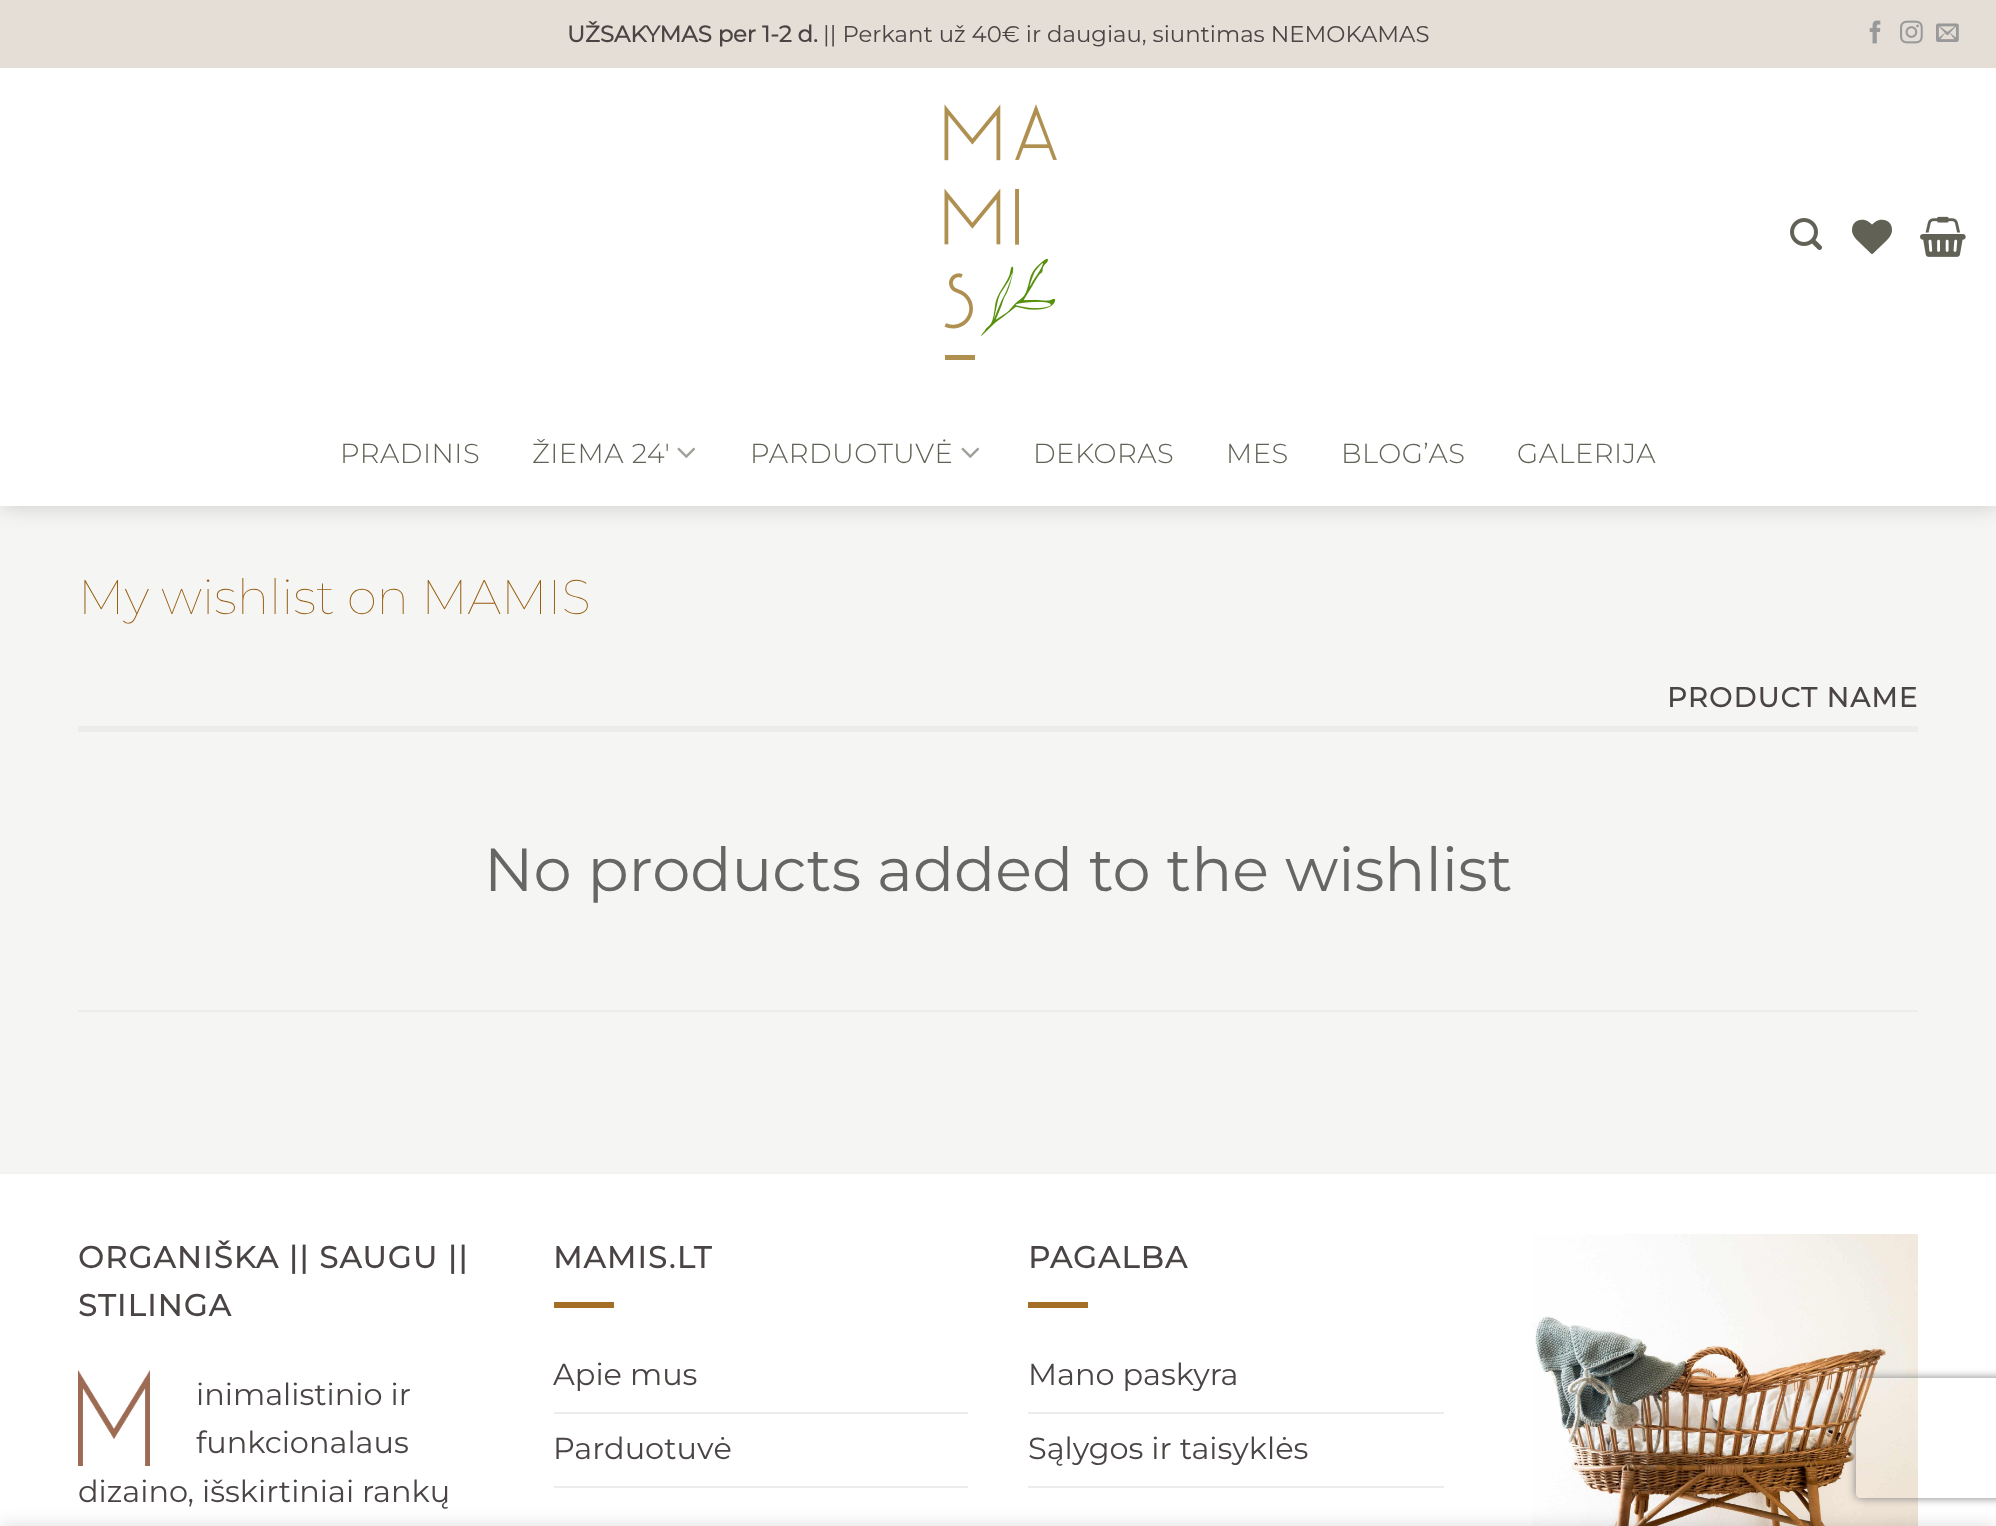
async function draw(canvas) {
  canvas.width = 1996
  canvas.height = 1526
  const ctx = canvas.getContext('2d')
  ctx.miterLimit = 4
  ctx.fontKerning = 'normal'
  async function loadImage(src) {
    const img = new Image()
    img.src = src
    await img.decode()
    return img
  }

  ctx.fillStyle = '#f5f5f3'
  ctx.fillRect(0, 0, 1996, 1526)
  ctx.fillStyle = '#00000026'
  ctx.filter = 'blur(10px)'
  ctx.beginPath()
  ctx.rect(2, 2, 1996, 506)
  ctx.fill()
  ctx.filter = 'none'
  ctx.fillStyle = '#e4ded6'
  ctx.fillRect(0, 0, 1996, 68)
  ctx.font = 'bold 22.8px Montserrat'
  ctx.fillStyle = '#4a4444'
  ctx.fillText('UŽSAKYMAS per 1-2 d.', 567, 42)
  ctx.font = '22.8px Montserrat'
  ctx.fillText('|| Perkant už 40€ ir daugiau, siuntimas NEMOKAMAS', 823, 42)
  ctx.drawImage(await loadImage('image0.png'), 1869, 20, 12, 24)
  ctx.drawImage(await loadImage('image1.png'), 1900, 20, 23, 24)
  ctx.drawImage(await loadImage('image2.png'), 1936, 23, 23, 19)
  ctx.fillStyle = '#fff'
  ctx.fillRect(0, 68, 1996, 438)
  ctx.drawImage(await loadImage('image3.png'), 944, 104, 113, 256)
  ctx.drawImage(await loadImage('image4.png'), 1790, 218, 32, 32)
  ctx.drawImage(await loadImage('image5.png'), 1852, 219, 40, 35)
  ctx.drawImage(await loadImage('image6.png'), 1920, 216, 46, 41)
  ctx.letterSpacing = '0.5px'
  ctx.font = '300 27.4px Montserrat'
  ctx.fillStyle = '#616156'
  ctx.fillText('PRADINIS', 340, 463)
  ctx.fillText('ŽIEMA 24′', 532, 463)
  ctx.drawImage(await loadImage('image7.png'), 677, 447, 19, 11)
  ctx.fillText('PARDUOTUVĖ', 750, 463)
  ctx.drawImage(await loadImage('image7.png'), 961, 447, 19, 11)
  ctx.fillText('DEKORAS', 1033, 463)
  ctx.fillText('MES', 1226, 463)
  ctx.fillText('BLOG’AS', 1341, 463)
  ctx.fillText('GALERIJA', 1517, 463)
  ctx.letterSpacing = '0px'
  ctx.font = '100 48.6px Montserrat'
  ctx.fillStyle = '#975d10'
  ctx.fillText('My wishlist on MAMIS', 78, 614)
  ctx.letterSpacing = '1.4px'
  ctx.font = 'bold 27.4px Montserrat'
  ctx.fillStyle = '#4a4444'
  ctx.fillText('PRODUCT NAME', 1667, 707)
  ctx.fillStyle = '#ececec'
  ctx.fillRect(78, 726, 1840, 6)
  ctx.fillRect(78, 1010, 1840, 2)
  ctx.letterSpacing = '0px'
  ctx.font = '60.75px Montserrat'
  ctx.fillStyle = '#666'
  ctx.fillText('No products added to the wishlist', 484, 891)
  ctx.fillStyle = '#fff'
  ctx.fillRect(0, 1174, 1996, 352)
  ctx.fillStyle = '#f2f2f2'
  ctx.fillRect(0, 1172, 1996, 2)
  ctx.letterSpacing = '1.5px'
  ctx.font = 'bold 30.4px Montserrat'
  ctx.fillStyle = '#4a4444'
  ctx.fillText('ORGANIŠKA || SAUGU ||', 78, 1268)
  ctx.fillText('STILINGA', 78, 1316)
  ctx.drawImage(await loadImage('image8.png'), 78, 1370, 72, 96)
  ctx.letterSpacing = '0px'
  ctx.font = '30.4px Montserrat'
  ctx.fillText('inimalistinio ir', 196, 1405)
  ctx.fillText('funkcionalaus', 196, 1453)
  ctx.fillText('dizaino, išskirtiniai rankų', 78, 1502)
  ctx.letterSpacing = '1.5px'
  ctx.font = 'bold 30.4px Montserrat'
  ctx.fillText('MAMIS.LT', 553, 1268)
  ctx.fillStyle = '#a46e27'
  ctx.fillRect(554, 1302, 60, 6)
  ctx.letterSpacing = '0px'
  ctx.font = '30.4px Montserrat'
  ctx.fillStyle = '#4a4444'
  ctx.fillText('Apie mus', 553, 1385)
  ctx.fillStyle = '#ececec'
  ctx.fillRect(554, 1412, 414, 2)
  ctx.fillStyle = '#4a4444'
  ctx.fillText('Parduotuvė', 553, 1459)
  ctx.fillStyle = '#ececec'
  ctx.fillRect(554, 1486, 414, 2)
  ctx.letterSpacing = '1.5px'
  ctx.font = 'bold 30.4px Montserrat'
  ctx.fillStyle = '#4a4444'
  ctx.fillText('PAGALBA', 1028, 1268)
  ctx.fillStyle = '#a46e27'
  ctx.fillRect(1028, 1302, 60, 6)
  ctx.letterSpacing = '0px'
  ctx.font = '30.4px Montserrat'
  ctx.fillStyle = '#4a4444'
  ctx.fillText('Mano paskyra', 1028, 1385)
  ctx.fillStyle = '#ececec'
  ctx.fillRect(1028, 1412, 416, 2)
  ctx.fillStyle = '#4a4444'
  ctx.fillText('Sąlygos ir taisyklės', 1028, 1459)
  ctx.fillStyle = '#ececec'
  ctx.fillRect(1028, 1486, 416, 2)
  ctx.drawImage(await loadImage('image9.png'), 1532, 1234, 386, 292)
  ctx.save()
  ctx.beginPath()
  ctx.moveTo(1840, 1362)
  ctx.lineTo(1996, 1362)
  ctx.lineTo(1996, 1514)
  ctx.lineTo(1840, 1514)
  ctx.closePath()
  ctx.moveTo(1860, 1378)
  ctx.lineTo(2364, 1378)
  ctx.bezierCurveTo(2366, 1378, 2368, 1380, 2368, 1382)
  ctx.lineTo(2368, 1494)
  ctx.bezierCurveTo(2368, 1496, 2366, 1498, 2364, 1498)
  ctx.lineTo(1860, 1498)
  ctx.bezierCurveTo(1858, 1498, 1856, 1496, 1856, 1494)
  ctx.lineTo(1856, 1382)
  ctx.bezierCurveTo(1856, 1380, 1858, 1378, 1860, 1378)
  ctx.closePath()
  ctx.clip('evenodd')
  ctx.fillStyle = '#808080'
  ctx.filter = 'blur(5px)'
  ctx.beginPath()
  ctx.roundRect(1856, 1378, 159, 120, 4)
  ctx.fill()
  ctx.filter = 'none'
  ctx.restore()
  ctx.fillStyle = '#00000024'
  ctx.filter = 'blur(9px)'
  ctx.beginPath()
  ctx.rect(0, 1526, 1996, 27)
  ctx.fill()
  ctx.filter = 'none'
}

draw(document.querySelector('canvas'))
